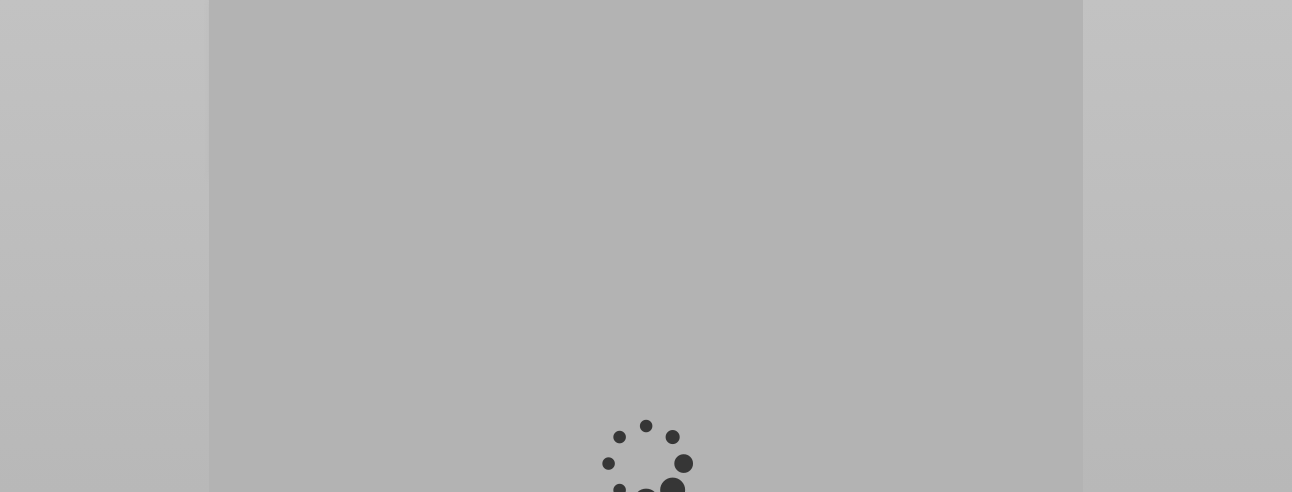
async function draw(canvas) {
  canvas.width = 1292
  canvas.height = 492
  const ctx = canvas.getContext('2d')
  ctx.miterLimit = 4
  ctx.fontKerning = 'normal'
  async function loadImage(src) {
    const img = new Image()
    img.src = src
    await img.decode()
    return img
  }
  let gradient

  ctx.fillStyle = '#fff'
  ctx.fillRect(0, 0, 1292, 492)
  gradient = ctx.createLinearGradient(646, 0, 646, 492)
  gradient.addColorStop(0, '#c2c2c2')
  gradient.addColorStop(1, '#b8b8b8')
  ctx.fillStyle = gradient
  ctx.fillRect(0, 0, 1292, 492)
  ctx.fillStyle = '#b3b3b3'
  ctx.filter = 'blur(3px)'
  ctx.beginPath()
  ctx.rect(211, 2, 304, 175)
  ctx.fill()
  ctx.filter = 'none'
  ctx.fillRect(209, 0, 874, 492)
  ctx.drawImage(await loadImage('image0.png'), 602, 419, 91, 73)
}

draw(document.querySelector('canvas'))
